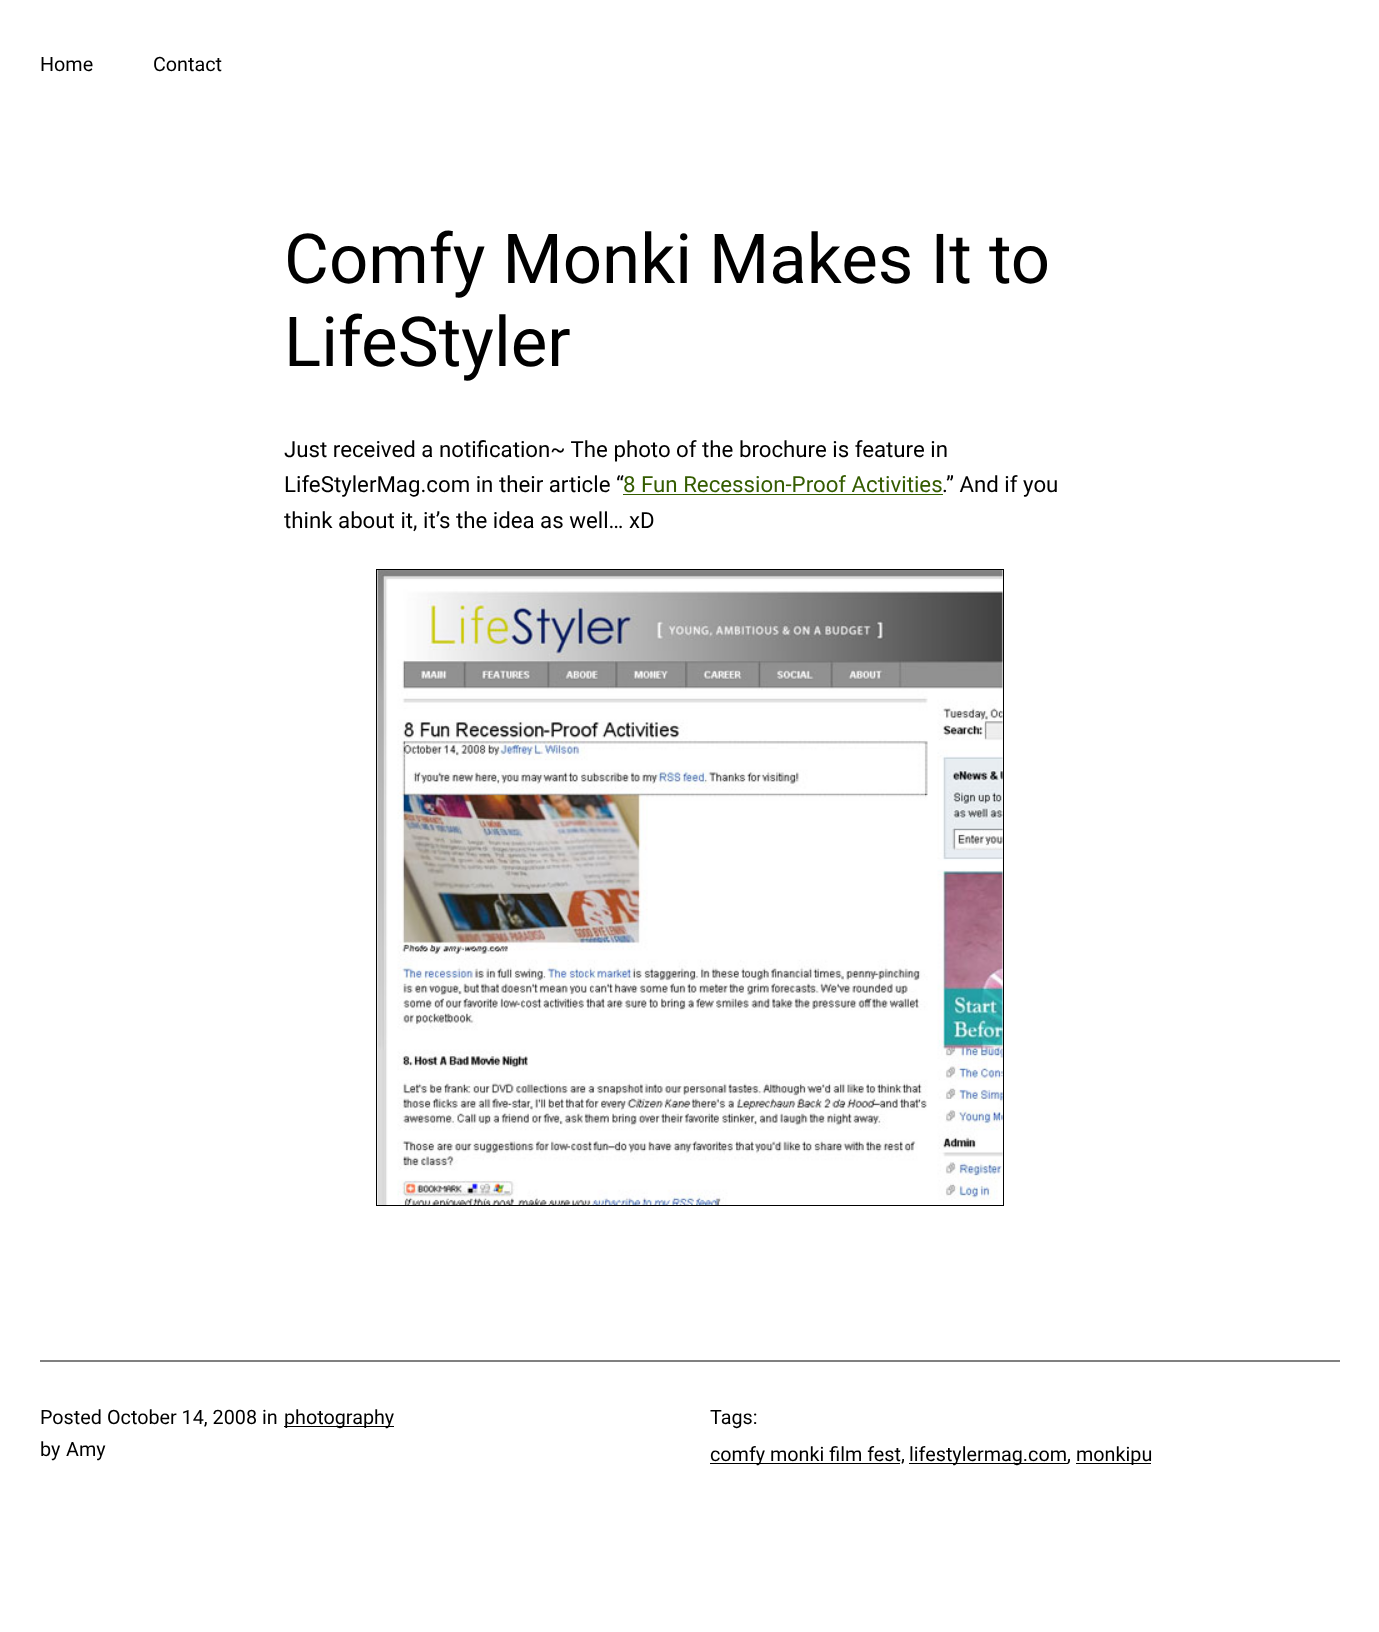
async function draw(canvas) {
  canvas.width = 1379
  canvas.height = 1632
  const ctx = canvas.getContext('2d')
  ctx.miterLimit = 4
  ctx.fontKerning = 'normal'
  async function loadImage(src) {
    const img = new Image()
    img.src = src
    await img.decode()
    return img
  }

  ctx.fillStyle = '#fff'
  ctx.fillRect(0, 0, 1379, 1632)
  ctx.font = '19.75px Roboto'
  ctx.fillStyle = '#000'
  ctx.fillText('Home', 40, 71)
  ctx.fillText('Contact', 153, 71)
  ctx.font = '69px Roboto'
  ctx.fillText('Comfy Monki Makes It to', 284, 283)
  ctx.fillText('LifeStyler', 284, 366)
  ctx.font = '22.25px Roboto'
  ctx.fillText('Just received a notification~ The photo of the brochure is feature in', 284, 457)
  ctx.fillText('LifeStylerMag.com in their article “', 284, 492)
  ctx.fillStyle = '#345c00'
  ctx.fillText('8 Fun Recession-Proof Activities', 623, 492)
  ctx.fillRect(623, 494, 320, 1)
  ctx.fillStyle = '#000'
  ctx.fillText('.” And if you', 942, 492)
  ctx.fillText('think about it, it’s the idea as well… xD', 284, 528)
  ctx.strokeStyle = '#000'
  ctx.strokeRect(376.5, 569.5, 627, 636)
  ctx.drawImage(await loadImage('image0.png'), 377, 570, 626, 635)
  ctx.fillStyle = '#808080'
  ctx.fillRect(40, 1360, 1300, 2)
  ctx.font = '19.75px Roboto'
  ctx.fillStyle = '#000'
  ctx.fillText('Posted', 40, 1424)
  ctx.fillText('October 14, 2008', 107, 1424)
  ctx.fillText('in', 262, 1424)
  ctx.fillRect(284, 1426, 110, 1)
  ctx.fillText('photography', 284, 1424)
  ctx.fillText('by', 40, 1456)
  ctx.fillText('Amy', 66, 1456)
  ctx.fillText('Tags:', 710, 1424)
  ctx.fillRect(710, 1463, 190, 1)
  ctx.fillText('comfy monki film fest,', 710, 1461)
  ctx.fillRect(909, 1463, 159, 1)
  ctx.fillText('lifestylermag.com,', 909, 1461)
  ctx.fillRect(1076, 1463, 75, 1)
  ctx.fillText('monkipu', 1076, 1461)
}

draw(document.querySelector('canvas'))
